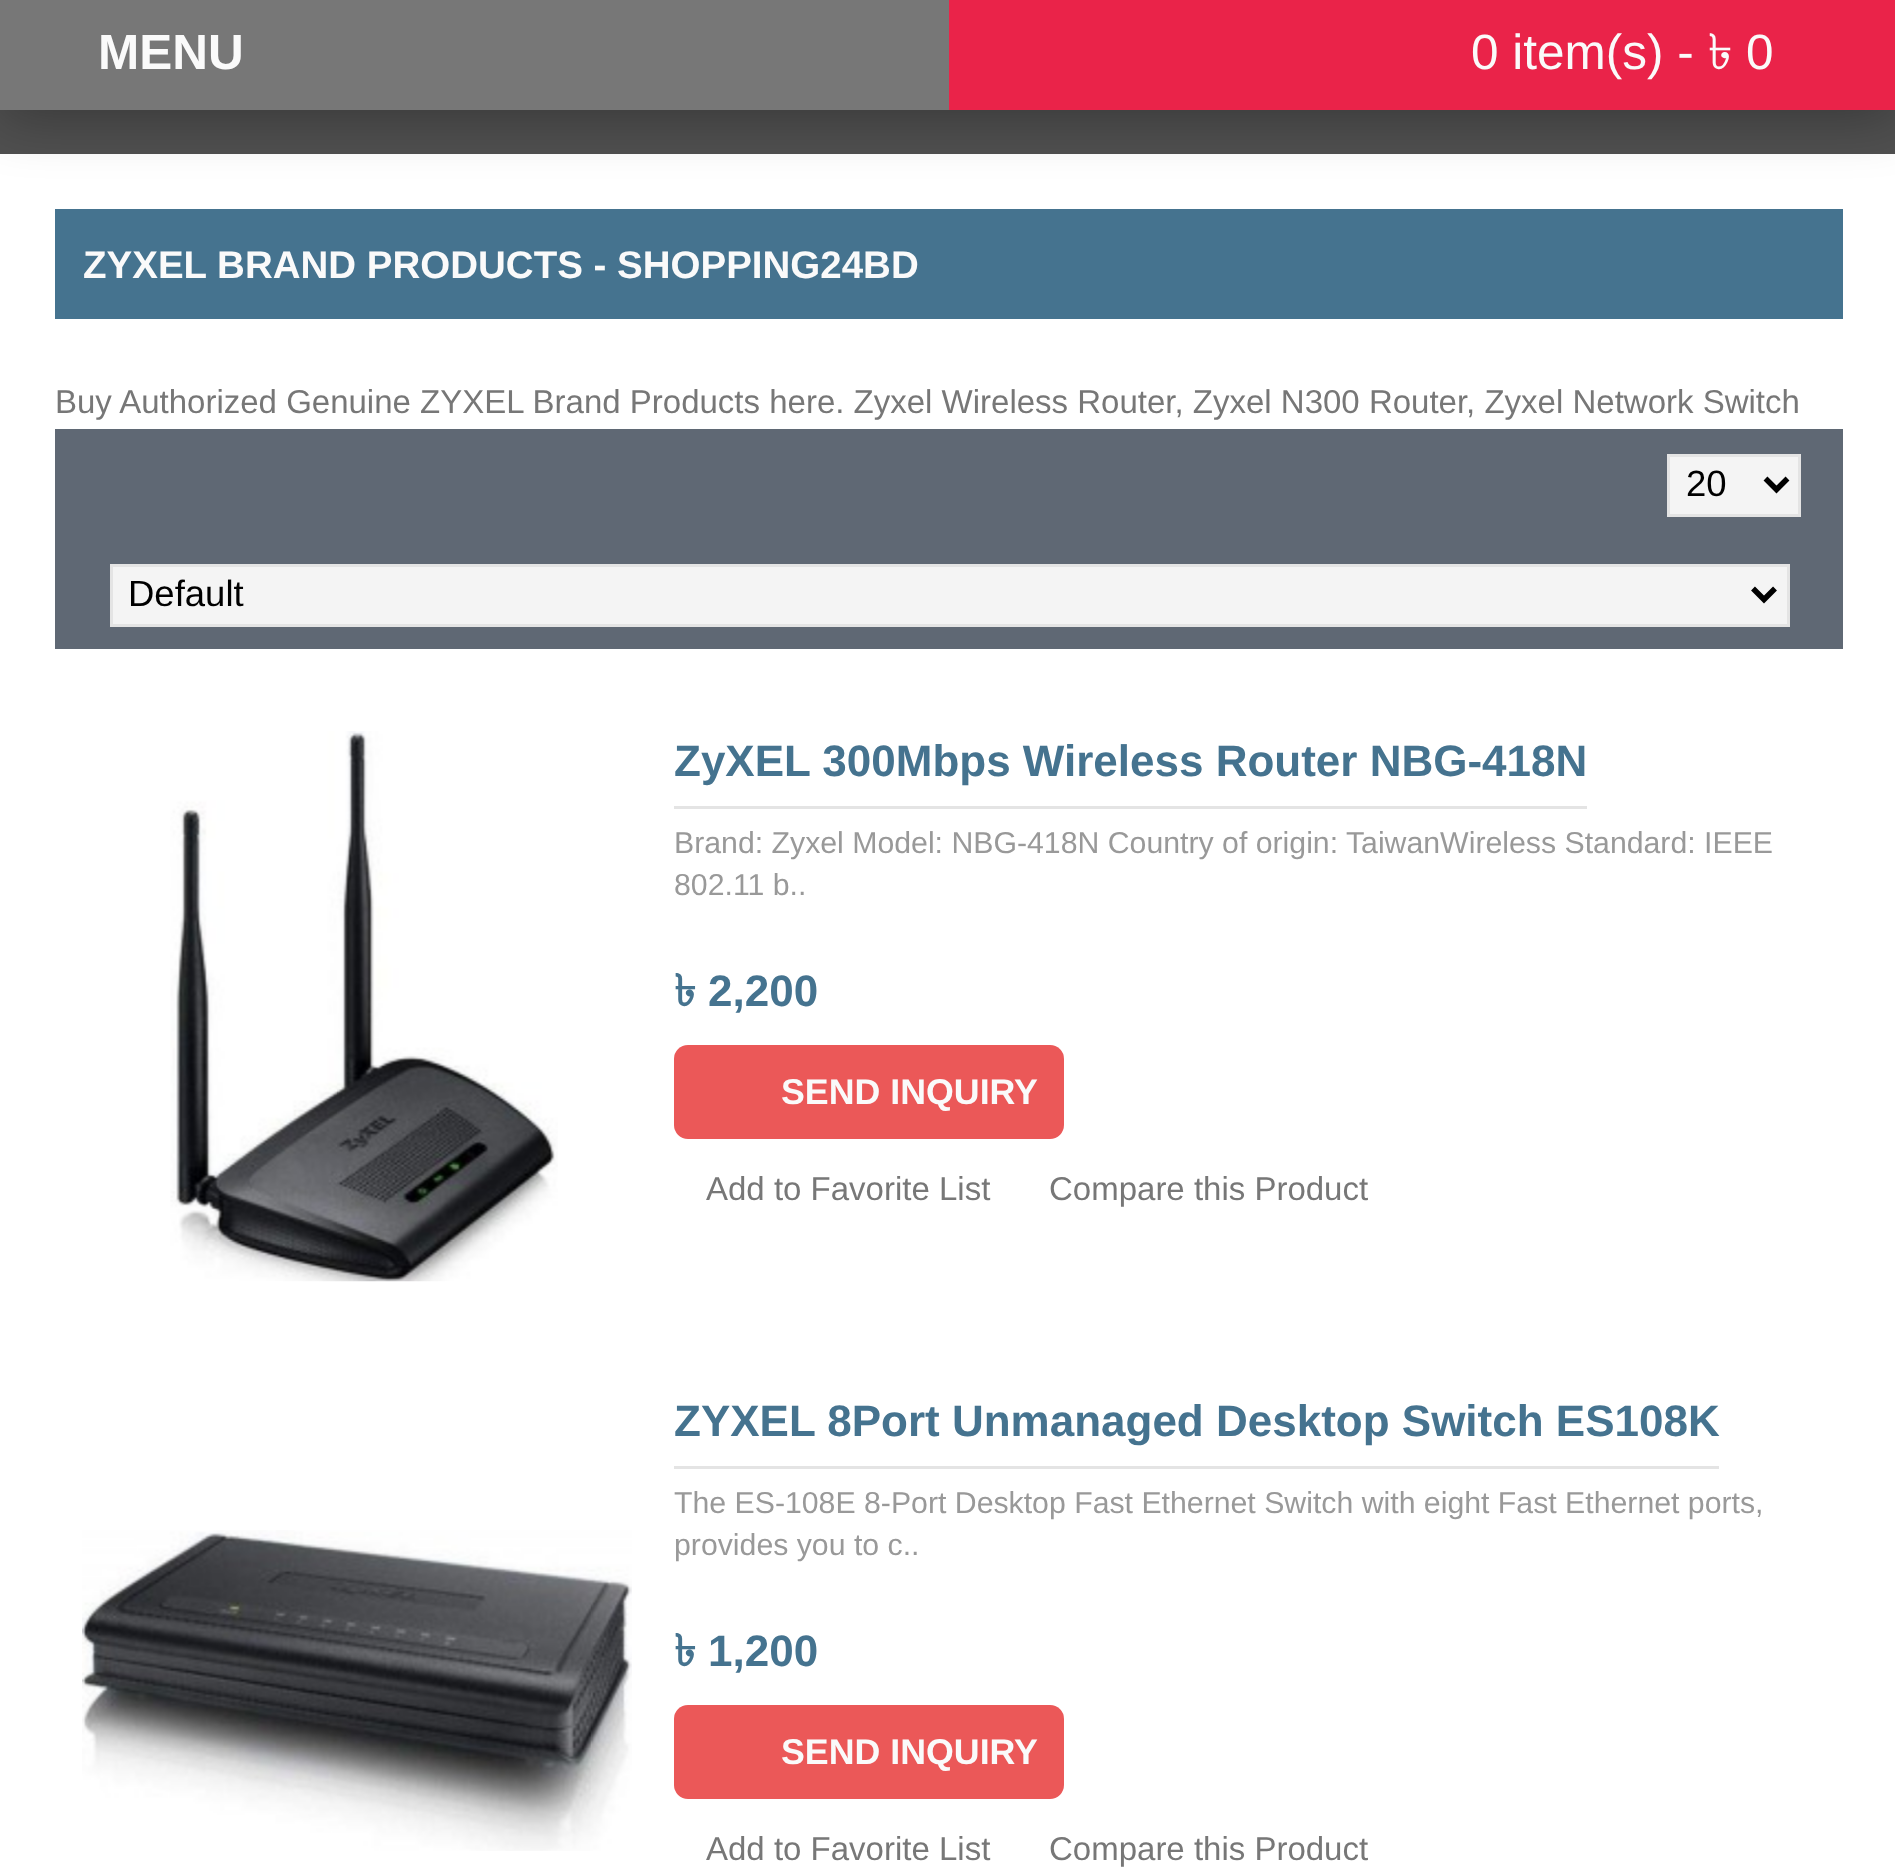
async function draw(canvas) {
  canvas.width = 1895
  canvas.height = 1876
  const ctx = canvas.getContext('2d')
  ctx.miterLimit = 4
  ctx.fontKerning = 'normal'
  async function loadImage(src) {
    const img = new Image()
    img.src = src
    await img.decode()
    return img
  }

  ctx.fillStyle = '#fff'
  ctx.fillRect(0, 0, 1895, 1876)
  ctx.fillStyle = '#505050'
  ctx.fillRect(0, 110, 1895, 44)
  ctx.fillStyle = '#0000004d'
  ctx.filter = 'blur(27.5px)'
  ctx.beginPath()
  ctx.rect(0, 8, 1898, 110)
  ctx.fill()
  ctx.filter = 'none'
  ctx.fillStyle = '#777'
  ctx.fillRect(0, 0, 949, 110)
  ctx.font = 'bold 49.5px Liberation Sans'
  ctx.fillStyle = '#fafafa'
  ctx.fillText('MENU', 98, 69)
  ctx.fillStyle = '#ea2349'
  ctx.fillRect(949, 0, 946, 110)
  ctx.font = '49.5px Liberation Sans'
  ctx.fillStyle = '#fafafa'
  ctx.fillText('0 item(s) -', 1471, 69)
  ctx.font = '49.5px Lohit Bengali'
  ctx.fillText('৳', 1708, 69)
  ctx.font = '49.5px Liberation Sans'
  ctx.fillText('0', 1746, 69)
  ctx.fillStyle = '#45738f'
  ctx.fillRect(55, 209, 1788, 110)
  ctx.font = 'bold 38.5px Liberation Sans'
  ctx.fillStyle = '#fafafa'
  ctx.fillText('ZYXEL BRAND PRODUCTS - SHOPPING24BD', 83, 278)
  ctx.font = '33px Liberation Sans'
  ctx.fillStyle = '#777'
  ctx.fillText('Buy Authorized Genuine ZYXEL Brand Products here. Zyxel Wireless Router, Zyxel N300 Router, Zyxel Network Switch', 55, 413)
  ctx.fillStyle = '#5f6874'
  ctx.fillRect(55, 429, 1788, 220)
  ctx.fillStyle = '#f4f4f4'
  ctx.beginPath()
  ctx.rect(1668.5, 455.5, 131, 60)
  ctx.fill()
  ctx.strokeStyle = '#e4e4e4'
  ctx.lineWidth = 3
  ctx.stroke()
  ctx.beginPath()
  ctx.moveTo(1765.5, 478.5)
  ctx.lineTo(1776.5, 489.5)
  ctx.lineTo(1787.5, 478.5)
  ctx.strokeStyle = '#000'
  ctx.lineWidth = 5.5
  ctx.stroke()
  ctx.font = '36.5px Liberation Sans'
  ctx.fillStyle = '#000'
  ctx.fillText('20', 1686, 496)
  ctx.fillStyle = '#f4f4f4'
  ctx.beginPath()
  ctx.rect(111.5, 565.5, 1677, 60)
  ctx.fill()
  ctx.strokeStyle = '#e4e4e4'
  ctx.lineWidth = 3
  ctx.stroke()
  ctx.beginPath()
  ctx.moveTo(1753, 588.5)
  ctx.lineTo(1764, 599.5)
  ctx.lineTo(1775, 588.5)
  ctx.strokeStyle = '#000'
  ctx.lineWidth = 5.5
  ctx.stroke()
  ctx.fillStyle = '#000'
  ctx.fillText('Default', 128, 606)
  ctx.drawImage(await loadImage('image0.png'), 170, 731, 388, 551)
  ctx.fillStyle = '#e4e4e4'
  ctx.fillRect(674, 806, 913, 3)
  ctx.font = 'bold 44px Liberation Sans'
  ctx.fillStyle = '#45738f'
  ctx.fillText('ZyXEL 300Mbps Wireless Router NBG-418N', 674, 776)
  ctx.font = '30.25px Liberation Sans'
  ctx.fillStyle = '#999'
  ctx.fillText('Brand: Zyxel Model: NBG-418N Country of origin: TaiwanWireless Standard: IEEE', 674, 853)
  ctx.fillText('802.11 b..', 674, 895)
  ctx.font = 'bold 44px Lohit Bengali'
  ctx.fillStyle = '#45738f'
  ctx.fillText('৳', 674, 1006)
  ctx.font = 'bold 44px Liberation Sans'
  ctx.fillText('2,200', 708, 1006)
  ctx.fillStyle = '#eb5858'
  ctx.beginPath()
  ctx.roundRect(674, 1045, 390, 94, 14)
  ctx.fill()
  ctx.font = 'bold 35.75px Liberation Sans'
  ctx.fillStyle = '#fafafa'
  ctx.fillText('SEND INQUIRY', 781, 1104)
  ctx.font = '33px Liberation Sans'
  ctx.fillStyle = '#777'
  ctx.fillText('Add to Favorite List', 706, 1200)
  ctx.fillText('Compare this Product', 1049, 1200)
  ctx.drawImage(await loadImage('image1.png'), 82, 1530, 550, 321)
  ctx.fillStyle = '#e4e4e4'
  ctx.fillRect(674, 1466, 1045, 3)
  ctx.font = 'bold 44px Liberation Sans'
  ctx.fillStyle = '#45738f'
  ctx.fillText('ZYXEL 8Port Unmanaged Desktop Switch ES108K', 674, 1436)
  ctx.font = '30.25px Liberation Sans'
  ctx.fillStyle = '#999'
  ctx.fillText('The ES-108E 8-Port Desktop Fast Ethernet Switch with eight Fast Ethernet ports,', 674, 1513)
  ctx.fillText('provides you to c..', 674, 1555)
  ctx.font = 'bold 44px Lohit Bengali'
  ctx.fillStyle = '#45738f'
  ctx.fillText('৳', 674, 1666)
  ctx.font = 'bold 44px Liberation Sans'
  ctx.fillText('1,200', 708, 1666)
  ctx.fillStyle = '#eb5858'
  ctx.beginPath()
  ctx.roundRect(674, 1705, 390, 94, 14)
  ctx.fill()
  ctx.font = 'bold 35.75px Liberation Sans'
  ctx.fillStyle = '#fafafa'
  ctx.fillText('SEND INQUIRY', 781, 1764)
  ctx.font = '33px Liberation Sans'
  ctx.fillStyle = '#777'
  ctx.fillText('Add to Favorite List', 706, 1860)
  ctx.fillText('Compare this Product', 1049, 1860)
}

draw(document.querySelector('canvas'))
